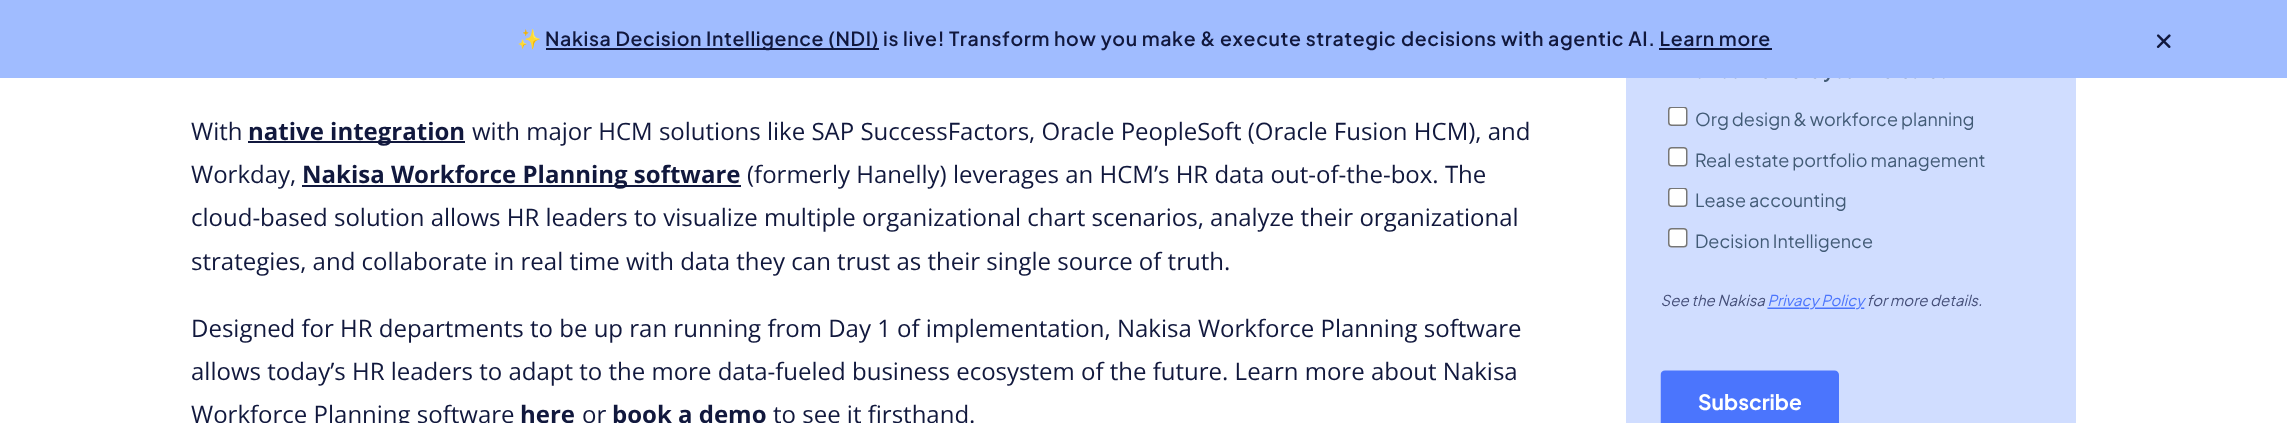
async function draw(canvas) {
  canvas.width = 2287
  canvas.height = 423
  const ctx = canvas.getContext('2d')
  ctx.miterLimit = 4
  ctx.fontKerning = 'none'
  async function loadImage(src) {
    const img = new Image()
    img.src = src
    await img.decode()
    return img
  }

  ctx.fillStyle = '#fff'
  ctx.fillRect(0, 0, 2287, 423)
  ctx.fillStyle = '#a0bcff'
  ctx.fillRect(0, 0, 2287, 78)
  ctx.letterSpacing = '0.6px'
  ctx.font = 'bold 19.5px Noto Color Emoji'
  ctx.fillStyle = '#11183d'
  ctx.fillText('✨', 517, 46)
  ctx.fillRect(546, 48, 333, 2)
  ctx.font = '600 19.5px Plus Jakarta Sans'
  ctx.fillText('Nakisa Decision Intelligence (NDI) is live! Transform how you make & execute strategic', 545, 46)
  ctx.fillText('decisions with agentic AI. Learn more', 1401, 46)
  ctx.fillRect(1659, 48, 113, 2)
  ctx.drawImage(await loadImage('image0.png'), 2156, 34, 15, 14)
  ctx.letterSpacing = '0px'
  ctx.font = '24px Open Sans'
  ctx.fillText('With', 191, 140)
  ctx.fillRect(248, 141, 217, 2)
  ctx.font = 'bold 24px Open Sans'
  ctx.fillText('native integration', 248, 140)
  ctx.font = '24px Open Sans'
  ctx.fillText('with major HCM solutions like SAP SuccessFactors, Oracle PeopleSoft (Oracle Fusion HCM), and', 472, 140)
  ctx.fillText('Workday,', 191, 183)
  ctx.fillRect(302, 185, 439, 2)
  ctx.font = 'bold 24px Open Sans'
  ctx.fillText('Nakisa Workforce Planning software', 302, 183)
  ctx.font = '24px Open Sans'
  ctx.fillText('(formerly Hanelly) leverages an HCM’s HR data out-of-the-box. The', 747, 183)
  ctx.fillText('cloud-based solution allows HR leaders to visualize multiple organizational chart scenarios, analyze their organizational', 191, 226)
  ctx.fillText('strategies, and collaborate in real time with data they can trust as their single source of truth.', 191, 270)
  ctx.fillText('Designed for HR departments to be up ran running from Day 1 of implementation, Nakisa Workforce Planning software', 191, 337)
  ctx.fillText('allows today’s HR leaders to adapt to the more data-fueled business ecosystem of the future. Learn more about Nakisa', 191, 380)
  ctx.fillText('Workforce Planning software', 191, 423)
  ctx.font = 'bold 24px Open Sans'
  ctx.fillText('here', 520, 423)
  ctx.font = '24px Open Sans'
  ctx.fillText('or', 582, 423)
  ctx.font = 'bold 24px Open Sans'
  ctx.fillText('book a demo', 612, 423)
  ctx.font = '24px Open Sans'
  ctx.fillText('to see it firsthand.', 773, 423)
  ctx.fillStyle = '#d0ddff'
  ctx.fillRect(1626, 78, 450, 345)
  ctx.drawImage(await loadImage('image1.png'), 1660, 78, 325, 345)
}

draw(document.querySelector('canvas'))
